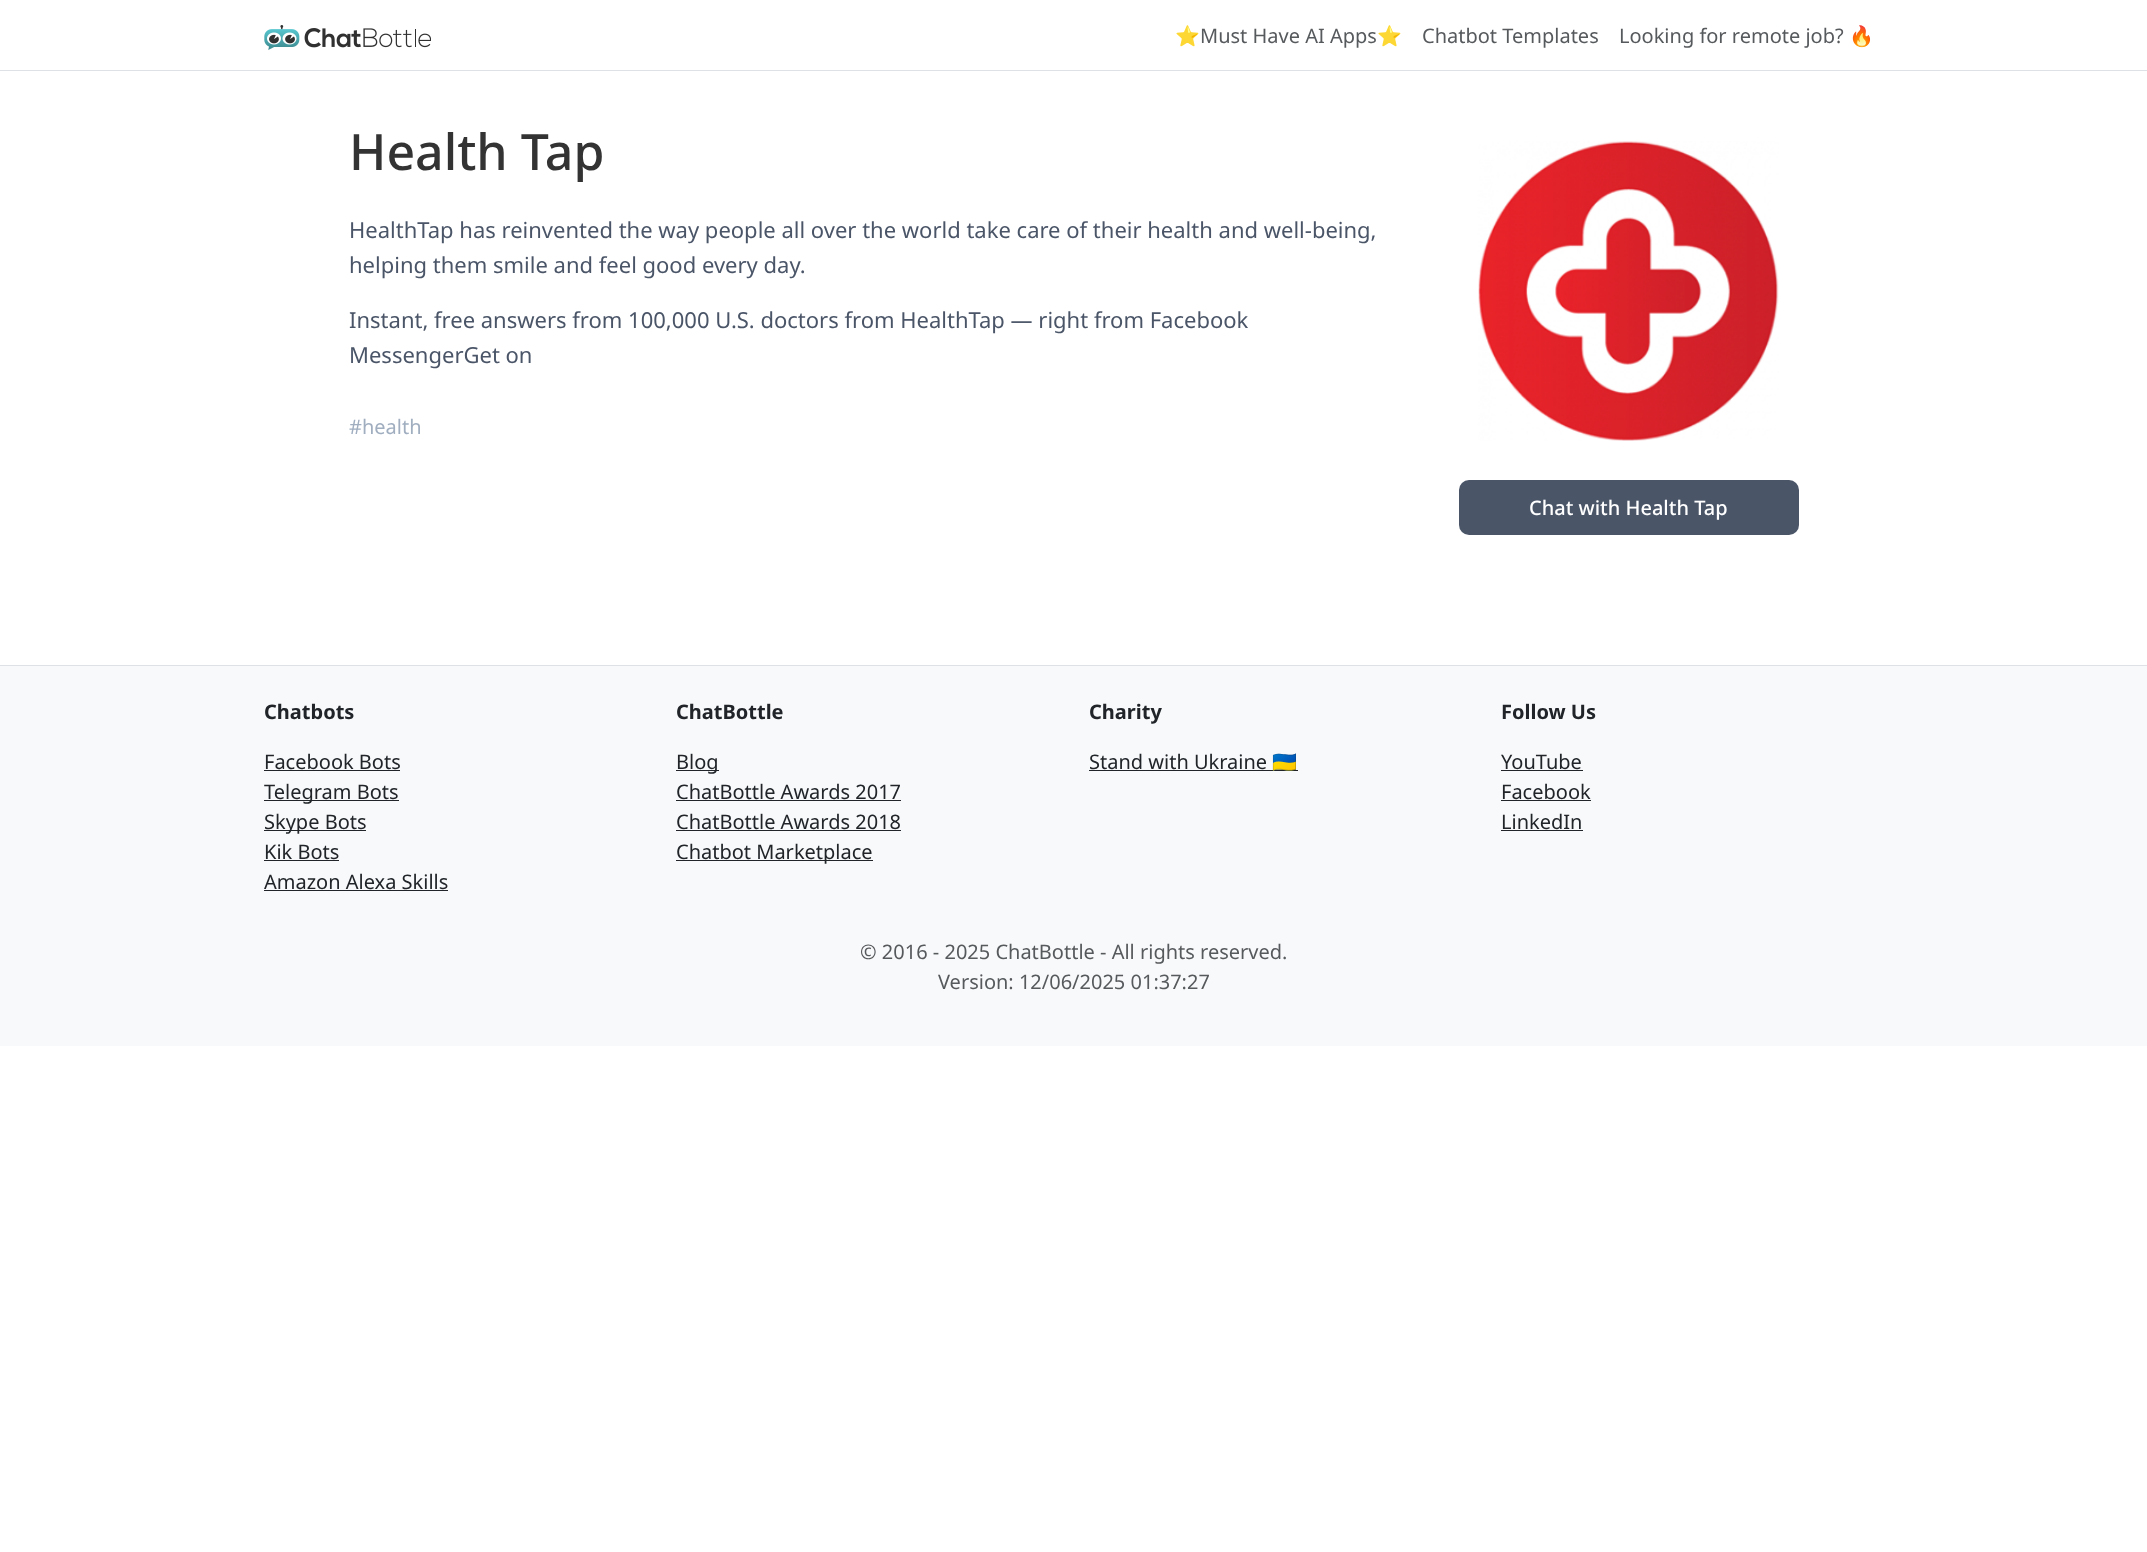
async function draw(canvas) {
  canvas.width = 2147
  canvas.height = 1552
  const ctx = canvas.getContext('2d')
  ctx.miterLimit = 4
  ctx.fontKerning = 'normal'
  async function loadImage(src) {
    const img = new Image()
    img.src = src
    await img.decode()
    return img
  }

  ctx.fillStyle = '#fff'
  ctx.fillRect(0, 0, 2147, 1552)
  ctx.fillStyle = '#dee2e6'
  ctx.fillRect(0, 70, 2147, 1)
  ctx.drawImage(await loadImage('image0.png'), 264, 25, 167, 25)
  ctx.font = '20px Noto Color Emoji'
  ctx.fillStyle = '#575a5d'
  ctx.fillText('⭐', 1175, 43)
  ctx.font = '20px Noto Sans'
  ctx.fillText('Must Have AI Apps', 1200, 43)
  ctx.font = '20px Noto Color Emoji'
  ctx.fillText('⭐', 1377, 43)
  ctx.font = '20px Noto Sans'
  ctx.fillText('Chatbot Templates', 1422, 43)
  ctx.fillText('Looking for remote job?', 1619, 43)
  ctx.font = '20px Noto Color Emoji'
  ctx.fillText('🔥', 1849, 43)
  ctx.font = '500 50px Noto Sans'
  ctx.fillStyle = '#333'
  ctx.fillText('Health Tap', 349, 170)
  ctx.font = '22px Noto Sans'
  ctx.fillStyle = '#4a5568'
  ctx.fillText('HealthTap has reinvented the way people all over the world take care of their health and well-being,', 349, 238)
  ctx.fillText('helping them smile and feel good every day.', 349, 273)
  ctx.fillText('Instant, free answers from 100,000 U.S. doctors from HealthTap — right from Facebook', 349, 328)
  ctx.fillText('MessengerGet on', 349, 363)
  ctx.font = '20px Noto Sans'
  ctx.fillStyle = '#a0aec0'
  ctx.fillText('#health', 349, 434)
  ctx.drawImage(await loadImage('image1.png'), 1478, 141, 301, 300)
  ctx.fillStyle = '#4a5568'
  ctx.beginPath()
  ctx.roundRect(1459, 480, 340, 55, 10)
  ctx.fill()
  ctx.font = '500 20px Noto Sans'
  ctx.fillStyle = '#fff'
  ctx.fillText('Chat with Health Tap', 1529, 515)
  ctx.fillStyle = '#f8f9fa'
  ctx.fillRect(0, 666, 2147, 380)
  ctx.fillStyle = '#dee2e6'
  ctx.fillRect(0, 665, 2147, 1)
  ctx.font = 'bold 20px Noto Sans'
  ctx.fillStyle = '#212529'
  ctx.fillText('Chatbots', 264, 719)
  ctx.font = '20px Noto Sans'
  ctx.fillText('Facebook Bots', 264, 769)
  ctx.fillRect(264, 770, 136, 1)
  ctx.fillRect(264, 800, 135, 1)
  ctx.fillText('Telegram Bots', 264, 799)
  ctx.fillRect(264, 830, 102, 1)
  ctx.fillText('Skype Bots', 264, 829)
  ctx.fillText('Kik Bots', 264, 859)
  ctx.fillRect(264, 860, 75, 1)
  ctx.fillText('Amazon Alexa Skills', 264, 889)
  ctx.fillRect(264, 890, 184, 1)
  ctx.font = 'bold 20px Noto Sans'
  ctx.fillText('ChatBottle', 676, 719)
  ctx.fillRect(676, 770, 43, 1)
  ctx.font = '20px Noto Sans'
  ctx.fillText('Blog', 676, 769)
  ctx.fillText('ChatBottle Awards 2017', 676, 799)
  ctx.fillRect(676, 800, 225, 1)
  ctx.fillText('ChatBottle Awards 2018', 676, 829)
  ctx.fillRect(676, 830, 225, 1)
  ctx.fillRect(676, 860, 197, 1)
  ctx.fillText('Chatbot Marketplace', 676, 859)
  ctx.font = 'bold 20px Noto Sans'
  ctx.fillText('Charity', 1089, 719)
  ctx.font = '20px Noto Sans'
  ctx.fillText('Stand with Ukraine', 1089, 769)
  ctx.fillRect(1089, 770, 209, 1)
  ctx.font = '20px Noto Color Emoji'
  ctx.fillText('🇺🇦', 1272, 769)
  ctx.font = 'bold 20px Noto Sans'
  ctx.fillText('Follow Us', 1501, 719)
  ctx.font = '20px Noto Sans'
  ctx.fillText('YouTube', 1501, 769)
  ctx.fillRect(1501, 770, 82, 1)
  ctx.fillText('Facebook', 1501, 799)
  ctx.fillRect(1501, 800, 90, 1)
  ctx.fillText('LinkedIn', 1501, 829)
  ctx.fillRect(1501, 830, 82, 1)
  ctx.fillStyle = '#575a5d'
  ctx.fillText('© 2016 - 2025 ChatBottle - All rights reserved.', 860, 959)
  ctx.fillText('Version: 12/06/2025 01:37:27', 938, 989)
}

draw(document.querySelector('canvas'))
